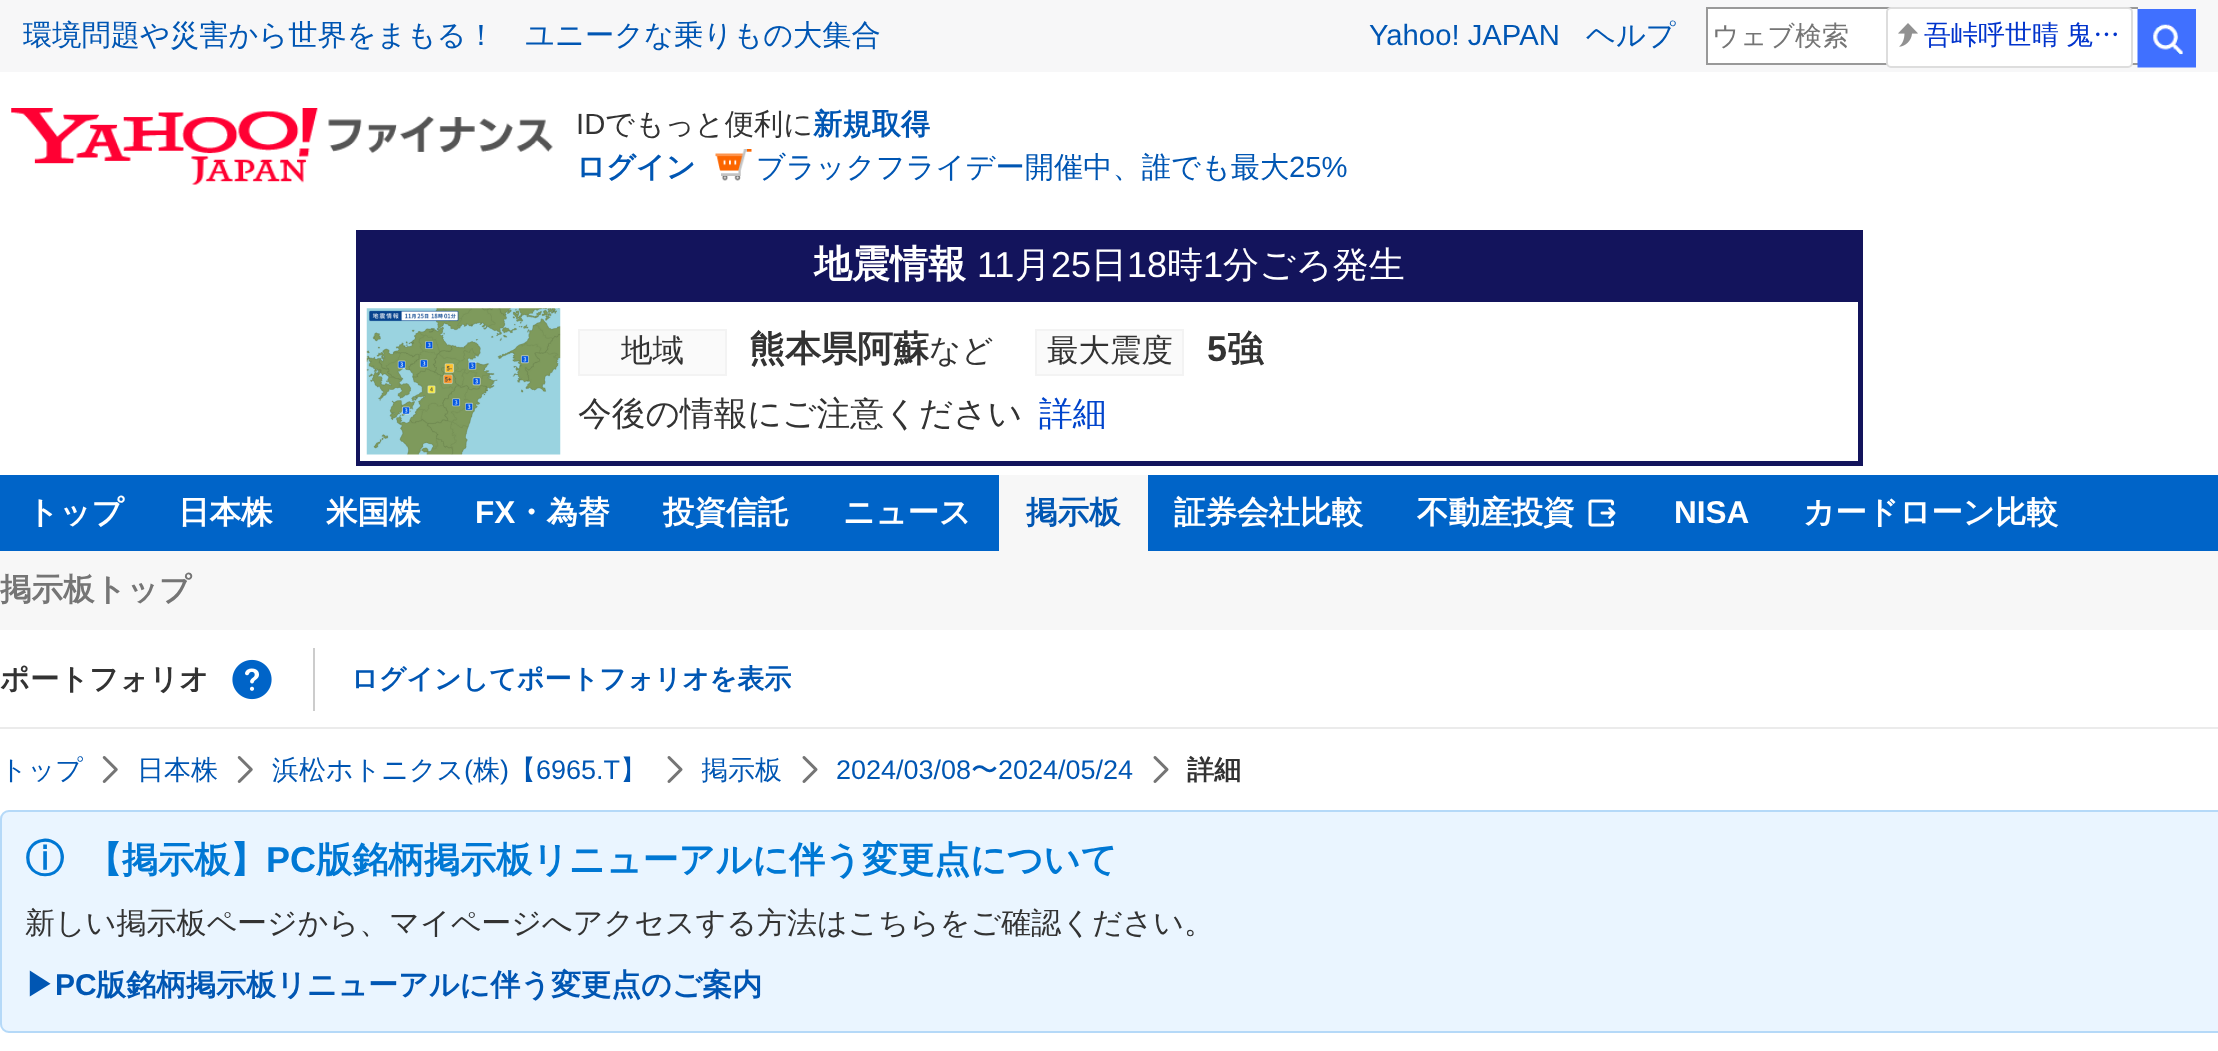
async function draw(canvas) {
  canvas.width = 2218
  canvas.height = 1051
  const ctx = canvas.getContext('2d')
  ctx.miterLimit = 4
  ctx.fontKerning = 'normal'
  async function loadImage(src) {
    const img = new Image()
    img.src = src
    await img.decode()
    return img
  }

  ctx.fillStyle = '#fff'
  ctx.fillRect(0, 0, 2218, 1051)
  ctx.fillStyle = '#f7f7f8'
  ctx.fillRect(0, 0, 2218, 72)
  ctx.font = '500 29.25px WenQuanYi Zen Hei'
  ctx.fillStyle = '#0056b3'
  ctx.fillText('環境問題や災害から世界をまもる！　ユニークな乗りもの大集合', 23, 45)
  ctx.font = '29.25px Liberation Sans'
  ctx.fillText('Yahoo! JAPAN', 1369, 45)
  ctx.font = '500 29.25px WenQuanYi Zen Hei'
  ctx.fillText('ヘルプ', 1586, 45)
  ctx.fillStyle = '#fff'
  ctx.fillRect(1708, 9, 430, 54)
  ctx.fillStyle = '#999'
  ctx.fillRect(1706, 7, 432, 2)
  ctx.fillRect(1706, 63, 432, 2)
  ctx.fillRect(1706, 7, 2, 58)
  ctx.font = '500 27px WenQuanYi Zen Hei'
  ctx.fillStyle = '#757575'
  ctx.fillText('ウェブ検索', 1712, 45)
  ctx.fillStyle = '#fff'
  ctx.beginPath()
  ctx.roundRect(1887, 8, 245, 59, 4)
  ctx.fill()
  ctx.strokeStyle = '#ddd'
  ctx.lineWidth = 2
  ctx.stroke()
  ctx.drawImage(await loadImage('image0.png'), 1898, 23, 20, 24)
  ctx.wordSpacing = '-1px'
  ctx.fillStyle = '#03c'
  ctx.fillText('吾峠呼世晴 鬼…', 1924, 44)
  ctx.drawImage(await loadImage('image1.png'), 2137, 9, 59, 59)
  ctx.drawImage(await loadImage('image2.png'), 11, 108, 542, 77)
  ctx.wordSpacing = '0px'
  ctx.font = '29.25px Liberation Sans'
  ctx.fillStyle = '#333'
  ctx.fillText('ID', 576, 134)
  ctx.font = '500 29.25px WenQuanYi Zen Hei'
  ctx.fillText('でもっと便利に', 605, 134)
  ctx.font = 'bold 29.25px WenQuanYi Zen Hei'
  ctx.fillStyle = '#0056b3'
  ctx.fillText('新規取得', 813, 134)
  ctx.fillText('ログイン', 576, 177)
  ctx.drawImage(await loadImage('image3.png'), 715, 149, 37, 32)
  ctx.font = '500 29.25px WenQuanYi Zen Hei'
  ctx.fillText('ブラックフライデー開催中、誰でも最大', 756, 177)
  ctx.font = '29.25px Liberation Sans'
  ctx.fillText('25%', 1289, 177)
  ctx.strokeStyle = '#13145c'
  ctx.lineWidth = 5
  ctx.strokeRect(358.5, 232.5, 1502, 231)
  ctx.fillStyle = '#13145c'
  ctx.fillRect(361, 235, 1497, 67)
  ctx.font = 'bold 38px WenQuanYi Zen Hei'
  ctx.fillStyle = '#fff'
  ctx.fillText('地震情報', 814, 277)
  ctx.font = '36px Liberation Sans'
  ctx.fillText('11', 977, 277)
  ctx.font = '500 36px WenQuanYi Zen Hei'
  ctx.fillText('月', 1015, 277)
  ctx.font = '36px Liberation Sans'
  ctx.fillText('25', 1051, 277)
  ctx.font = '500 36px WenQuanYi Zen Hei'
  ctx.fillText('日', 1091, 277)
  ctx.font = '36px Liberation Sans'
  ctx.fillText('18', 1127, 277)
  ctx.font = '500 36px WenQuanYi Zen Hei'
  ctx.fillText('時', 1167, 277)
  ctx.font = '36px Liberation Sans'
  ctx.fillText('1', 1203, 277)
  ctx.font = '500 36px WenQuanYi Zen Hei'
  ctx.fillText('分ごろ発生', 1223, 277)
  ctx.fillRect(360, 302, 1, 159)
  ctx.drawImage(await loadImage('image4.png'), 366, 308, 195, 147)
  ctx.fillStyle = '#fafafa'
  ctx.beginPath()
  ctx.rect(579, 330, 147, 45)
  ctx.fill()
  ctx.strokeStyle = '#f3f3f3'
  ctx.lineWidth = 2
  ctx.stroke()
  ctx.font = '500 31.5px WenQuanYi Zen Hei'
  ctx.fillStyle = '#333'
  ctx.fillText('地域', 621, 361)
  ctx.font = 'bold 36px WenQuanYi Zen Hei'
  ctx.fillText('熊本県阿蘇', 749, 361)
  ctx.font = '500 31.5px WenQuanYi Zen Hei'
  ctx.fillText('など', 929, 361)
  ctx.fillStyle = '#fafafa'
  ctx.beginPath()
  ctx.rect(1036, 330, 147, 45)
  ctx.fill()
  ctx.stroke()
  ctx.fillStyle = '#333'
  ctx.fillText('最大震度', 1047, 361)
  ctx.font = 'bold 36px Liberation Sans'
  ctx.fillText('5', 1207, 361)
  ctx.font = 'bold 36px WenQuanYi Zen Hei'
  ctx.fillText('強', 1227, 361)
  ctx.font = '500 33.75px WenQuanYi Zen Hei'
  ctx.fillText('今後の情報にご注意ください', 578, 425)
  ctx.fillStyle = '#04c'
  ctx.fillText('詳細', 1039, 425)
  ctx.fillStyle = '#ebebeb'
  ctx.fillRect(0, 727, 2218, 2)
  ctx.fillStyle = '#0064c8'
  ctx.fillRect(0, 475, 2218, 76)
  ctx.font = 'bold 31.5px WenQuanYi Zen Hei'
  ctx.fillStyle = '#fff'
  ctx.fillText('トップ', 27, 523)
  ctx.fillText('日本株', 178, 523)
  ctx.fillText('米国株', 326, 523)
  ctx.font = 'bold 31.5px Liberation Sans'
  ctx.fillText('FX', 475, 523)
  ctx.font = 'bold 31.5px WenQuanYi Zen Hei'
  ctx.fillText('・為替', 515, 523)
  ctx.fillText('投資信託', 663, 523)
  ctx.fillText('ニュース', 843, 523)
  ctx.fillStyle = '#f7f7f7'
  ctx.fillRect(999, 475, 149, 76)
  ctx.fillStyle = '#0056b3'
  ctx.fillText('掲示板', 1026, 523)
  ctx.fillStyle = '#fff'
  ctx.fillText('証券会社比較', 1174, 523)
  ctx.fillText('不動産投資', 1417, 523)
  ctx.drawImage(await loadImage('image5.png'), 1588, 499, 28, 28)
  ctx.font = 'bold 31.5px Liberation Sans'
  ctx.fillText('NISA', 1674, 523)
  ctx.font = 'bold 31.5px WenQuanYi Zen Hei'
  ctx.fillText('カードローン比較', 1803, 523)
  ctx.fillStyle = '#f7f7f7'
  ctx.fillRect(0, 551, 2218, 79)
  ctx.fillStyle = '#757575'
  ctx.fillText('掲示板トップ', 0, 600)
  ctx.font = 'bold 29.25px WenQuanYi Zen Hei'
  ctx.fillStyle = '#333'
  ctx.fillText('ポートフォリオ', 0, 689)
  ctx.drawImage(await loadImage('image6.png'), 232, 659, 40, 41)
  ctx.fillStyle = '#ccc'
  ctx.fillRect(313, 648, 2, 63)
  ctx.font = 'bold 27px WenQuanYi Zen Hei'
  ctx.fillStyle = '#0056b3'
  ctx.fillText('ログインしてポートフォリオを表示', 351, 688)
  ctx.font = '500 27px WenQuanYi Zen Hei'
  ctx.fillText('トップ', 0, 779)
  ctx.drawImage(await loadImage('image7.png'), 102, 756, 16, 27)
  ctx.fillText('日本株', 137, 779)
  ctx.drawImage(await loadImage('image7.png'), 237, 756, 16, 27)
  ctx.fillText('浜松ホトニクス', 272, 779)
  ctx.font = '27px Liberation Sans'
  ctx.fillText('(', 464, 779)
  ctx.font = '500 27px WenQuanYi Zen Hei'
  ctx.fillText('株', 473, 779)
  ctx.font = '27px Liberation Sans'
  ctx.fillText(')', 500, 779)
  ctx.font = '500 27px WenQuanYi Zen Hei'
  ctx.fillText('【', 509, 779)
  ctx.font = '27px Liberation Sans'
  ctx.fillText('6965.T', 536, 779)
  ctx.font = '500 27px WenQuanYi Zen Hei'
  ctx.fillText('】', 620, 779)
  ctx.drawImage(await loadImage('image8.png'), 667, 756, 16, 27)
  ctx.save()
  ctx.beginPath()
  ctx.rect(702, 754, 81, 34)
  ctx.clip()
  ctx.fillText('掲示板', 701, 779)
  ctx.restore()
  ctx.drawImage(await loadImage('image8.png'), 802, 756, 16, 27)
  ctx.font = '27px Liberation Sans'
  ctx.fillText('2024/03/08', 836, 779)
  ctx.font = '500 27px WenQuanYi Zen Hei'
  ctx.fillText('〜', 971, 779)
  ctx.font = '27px Liberation Sans'
  ctx.fillText('2024/05/24', 998, 779)
  ctx.drawImage(await loadImage('image8.png'), 1153, 756, 16, 27)
  ctx.font = 'bold 27px WenQuanYi Zen Hei'
  ctx.fillStyle = '#333'
  ctx.fillText('詳細', 1187, 779)
  ctx.fillStyle = '#eaf5ff'
  ctx.beginPath()
  ctx.moveTo(9, 810)
  ctx.lineTo(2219, 810)
  ctx.lineTo(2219, 1033)
  ctx.lineTo(9, 1033)
  ctx.bezierCurveTo(4, 1033, 0, 1029, 0, 1024)
  ctx.lineTo(0, 819)
  ctx.bezierCurveTo(0, 814, 4, 810, 9, 810)
  ctx.closePath()
  ctx.fill()
  ctx.beginPath()
  ctx.roundRect(1, 811, 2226, 221, 8)
  ctx.strokeStyle = '#b5d9f8'
  ctx.stroke()
  ctx.font = 'bold 39px WenQuanYi Zen Hei'
  ctx.fillStyle = '#0078d4'
  ctx.fillText('ⓘ', 25, 872)
  ctx.font = 'bold 36px WenQuanYi Zen Hei'
  ctx.fillText('【掲示板】', 86, 872)
  ctx.font = 'bold 36px Liberation Sans'
  ctx.fillText('PC', 266, 872)
  ctx.font = 'bold 36px WenQuanYi Zen Hei'
  ctx.fillText('版銘柄掲示板リニューアルに伴う変更点について', 316, 872)
  ctx.font = '500 30px WenQuanYi Zen Hei'
  ctx.fillStyle = '#333'
  ctx.fillText('新しい掲示板ページから、マイページへアクセスする方法はこちらをご確認ください。', 25, 933)
  ctx.font = 'bold 30px WenQuanYi Zen Hei'
  ctx.fillStyle = '#0056b3'
  ctx.fillText('▶︎', 25, 995)
  ctx.font = 'bold 30px Liberation Sans'
  ctx.fillText('PC', 55, 995)
  ctx.font = 'bold 30px WenQuanYi Zen Hei'
  ctx.fillText('版銘柄掲示板リニューアルに伴う変更点のご案内', 96, 995)
}

draw(document.querySelector('canvas'))
